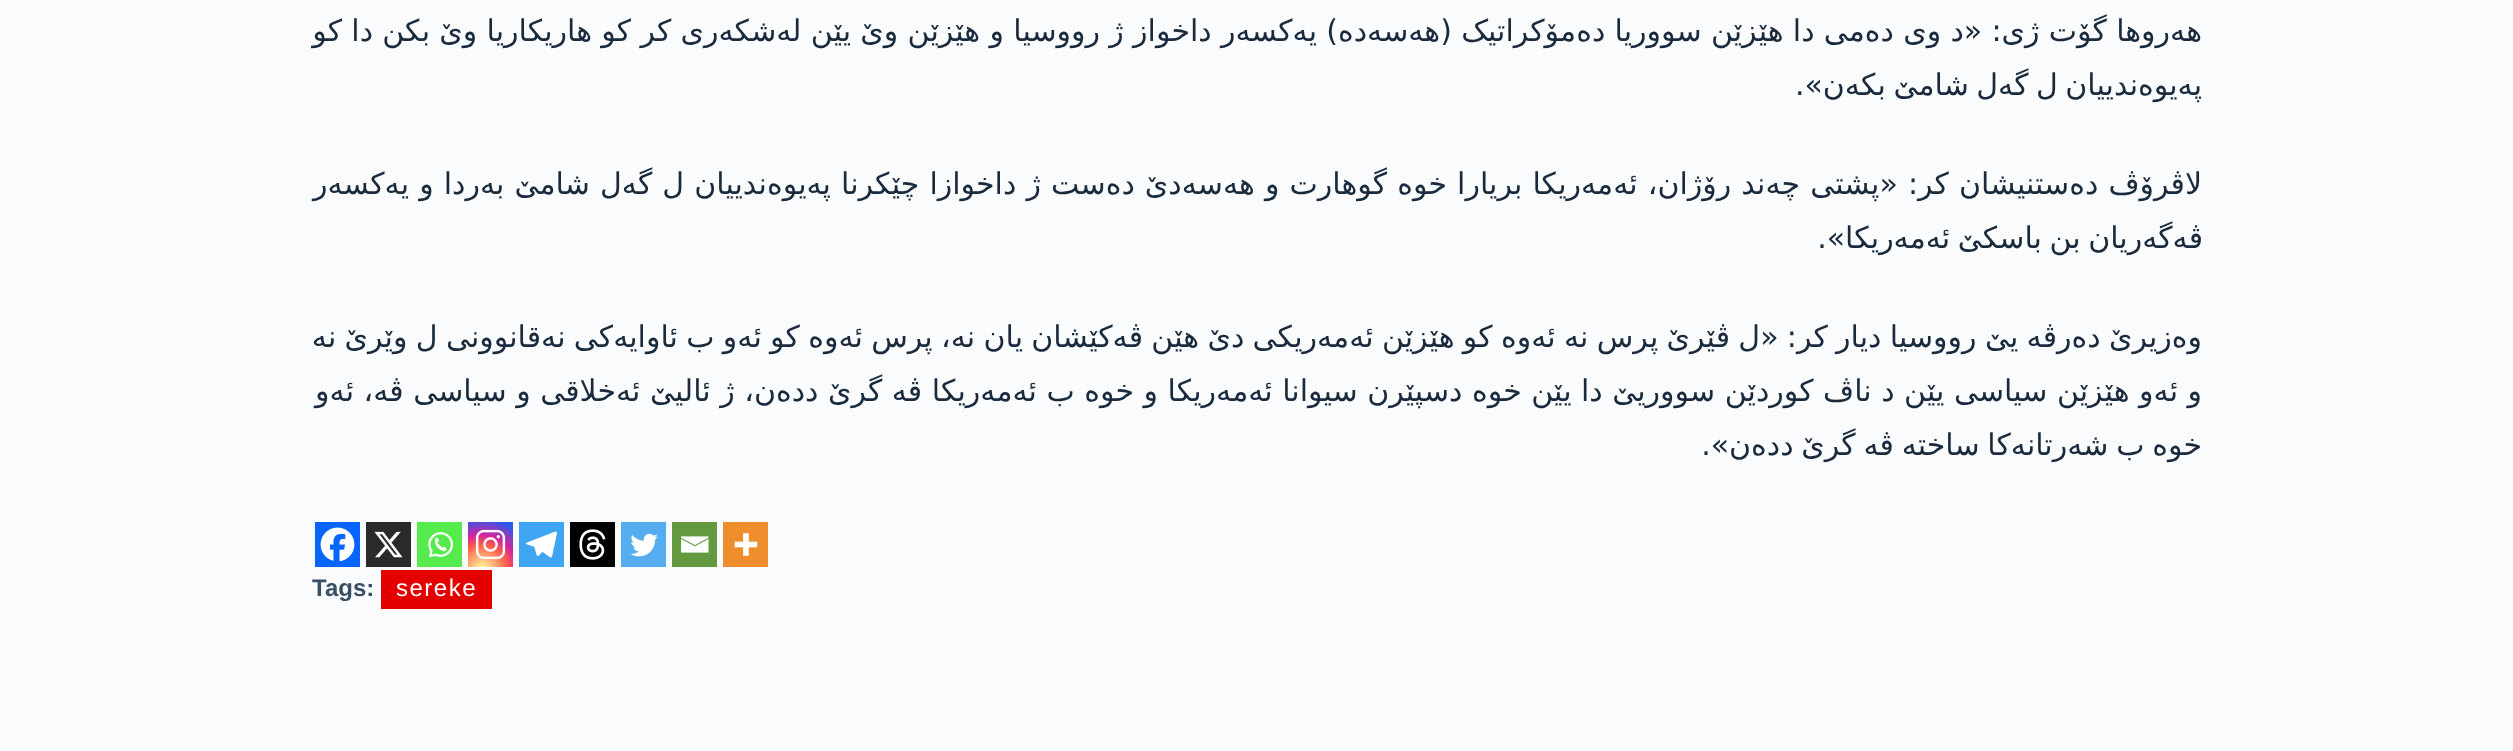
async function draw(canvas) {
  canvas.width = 2513
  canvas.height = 751
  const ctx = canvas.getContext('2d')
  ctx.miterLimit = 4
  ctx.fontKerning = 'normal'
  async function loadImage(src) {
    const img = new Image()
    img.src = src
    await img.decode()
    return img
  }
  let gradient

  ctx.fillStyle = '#fafbfc'
  ctx.fillRect(0, 0, 2513, 751)
  ctx.wordSpacing = '-0.25px'
  ctx.direction = 'rtl'
  ctx.font = '30px DejaVu Sans'
  ctx.fillStyle = '#192a3d'
  ctx.fillText('هەروها گۆت ژی: «د وی دەمی دا هێزێن سووریا دەمۆکراتیک (هه‌سه‌ده‌) یەکسەر داخواز ژ رووسیا و هێزێن وێ یێن لەشکەری کر کو هاریكاریا وێ بکن دا کو', 2202, 41)
  ctx.wordSpacing = '-2px'
  ctx.fillText('په‌یوه‌ندییان ل گه‌ل شامێ بکه‌ن».', 2202, 95)
  ctx.wordSpacing = '0.6px'
  ctx.fillText('لاڤرۆڤ دەستنیشان کر: «پشتی چەند رۆژان، ئه‌مه‌ریكا بریارا خوە گوهارت و هه‌سه‌دێ دەست ژ داخوازا چێكرنا په‌یوه‌ندییان ل گه‌ل شامێ بەردا و یەکسەر', 2202, 194)
  ctx.wordSpacing = '-2px'
  ctx.fillText('ڤەگەریان بن باسکێ ئه‌مه‌ریكا».', 2203, 248)
  ctx.wordSpacing = '-1.2px'
  ctx.fillText('وەزیرێ دەرڤە یێ رووسیا دیار کر: «ل ڤێرێ پرس نە ئەوە کو هێزێن ئه‌مه‌ریكی دێ هێن ڤه‌كێشان یان نه‌، پرس ئەوە کو ئەو ب ئاوایەکی نەقانوونی ل وێرێ نه‌', 2202, 347)
  ctx.wordSpacing = '0px'
  ctx.fillText('و ئەو هێزێن سیاسی یێن د ناڤ کوردێن سووریێ دا یێن خوە دسپێرن سیوانا ئه‌مه‌ریكا و خوە ب ئه‌مه‌ریكا ڤە گرێ دده‌ن، ژ ئالیێ ئەخلاقی و سیاسی ڤە، ئه‌و', 2202, 401)
  ctx.wordSpacing = '-1.75px'
  ctx.fillText('خوە ب شەرتانەکا ساختە ڤە گرێ دده‌ن».', 2202, 455)
  ctx.fillStyle = '#ee8e2d'
  ctx.fillRect(723, 522, 45, 45)
  ctx.drawImage(await loadImage('image0.png'), 734, 533, 24, 23)
  ctx.fillStyle = '#649a3f'
  ctx.fillRect(672, 522, 45, 45)
  ctx.drawImage(await loadImage('image1.png'), 681, 536, 28, 17)
  ctx.fillStyle = '#55acee'
  ctx.fillRect(621, 522, 45, 45)
  ctx.drawImage(await loadImage('image2.png'), 630, 533, 28, 24)
  ctx.fillStyle = '#000'
  ctx.fillRect(570, 522, 45, 45)
  ctx.drawImage(await loadImage('image3.png'), 579, 529, 27, 31)
  ctx.fillStyle = '#3da5f1'
  ctx.fillRect(519, 522, 45, 45)
  ctx.drawImage(await loadImage('image4.png'), 526, 531, 31, 27)
  gradient = ctx.createRadialGradient(482, 570, 0, 482, 570, 58)
  gradient.addColorStop(0, '#fdf497')
  gradient.addColorStop(0.05, '#fdf497')
  gradient.addColorStop(0.45, '#fd5949')
  gradient.addColorStop(0.6, '#d6249f')
  gradient.addColorStop(0.9, '#285aeb')
  ctx.fillStyle = gradient
  ctx.fillRect(468, 522, 45, 45)
  ctx.drawImage(await loadImage('image5.png'), 475, 529, 31, 31)
  ctx.fillStyle = '#55eb4c'
  ctx.fillRect(417, 522, 45, 45)
  ctx.drawImage(await loadImage('image6.png'), 428, 532, 25, 26)
  ctx.fillStyle = '#2a2a2a'
  ctx.fillRect(366, 522, 45, 45)
  ctx.drawImage(await loadImage('image7.png'), 374, 531, 29, 27)
  ctx.fillStyle = '#0765fe'
  ctx.fillRect(315, 522, 45, 45)
  ctx.drawImage(await loadImage('image8.png'), 320, 527, 35, 35)
  ctx.fillStyle = '#e50000'
  ctx.fillRect(381, 570, 111, 39)
  ctx.letterSpacing = '1.5px'
  ctx.wordSpacing = '0px'
  ctx.direction = 'ltr'
  ctx.font = '24px Liberation Sans'
  ctx.fillStyle = '#fff'
  ctx.fillText('sereke', 396, 596)
  ctx.letterSpacing = '0px'
  ctx.font = 'bold 24px Liberation Sans'
  ctx.fillStyle = '#3a4f66'
  ctx.fillText('Tags:', 312, 596)
}

draw(document.querySelector('canvas'))
